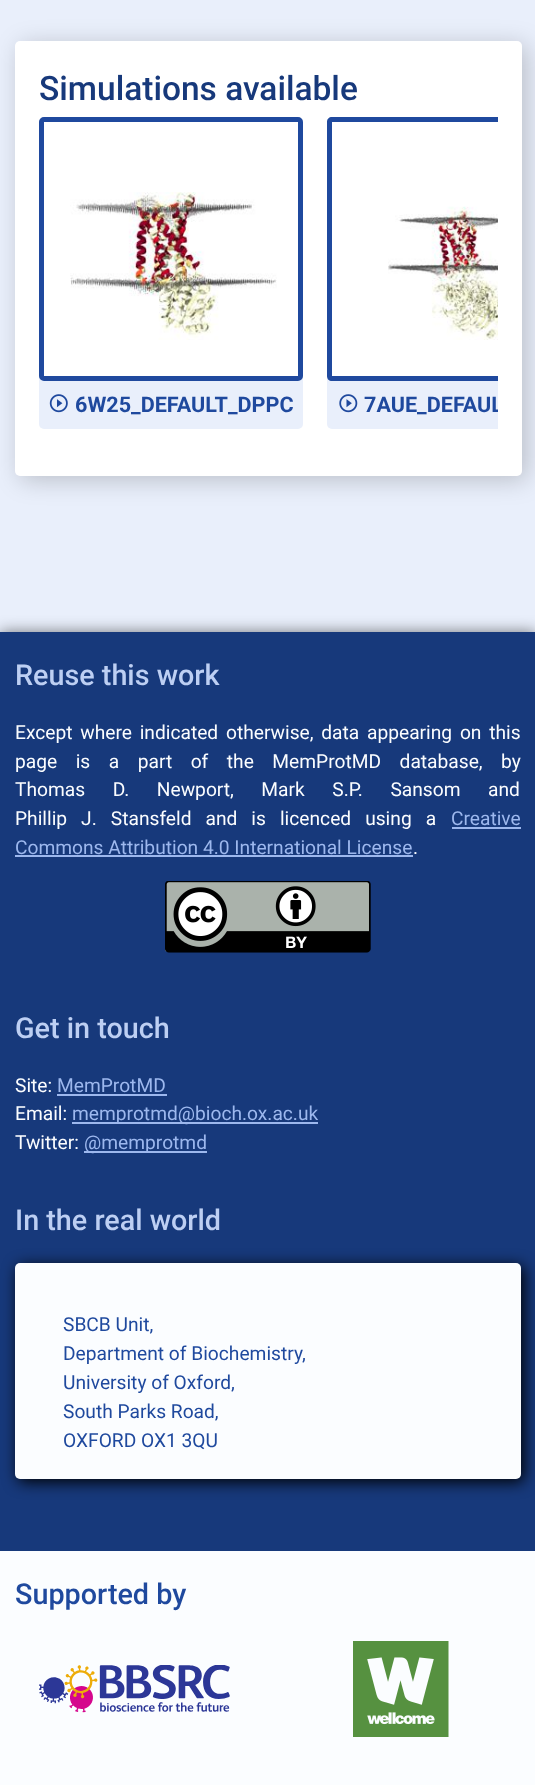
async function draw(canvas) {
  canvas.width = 535
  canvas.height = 1785
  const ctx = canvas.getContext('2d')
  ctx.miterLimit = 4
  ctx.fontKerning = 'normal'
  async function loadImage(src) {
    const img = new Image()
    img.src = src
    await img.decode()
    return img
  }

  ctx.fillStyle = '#e9effb'
  ctx.fillRect(0, 0, 535, 1785)
  ctx.fillStyle = '#00000033'
  ctx.filter = 'blur(12px)'
  ctx.beginPath()
  ctx.roundRect(20, 45, 507, 435, 5)
  ctx.fill()
  ctx.filter = 'none'
  ctx.fillStyle = '#fff'
  ctx.beginPath()
  ctx.roundRect(15, 41, 507, 435, 5)
  ctx.fill()
  ctx.font = '500 33.5px Roboto'
  ctx.fillStyle = '#17397b'
  ctx.fillText('Simulations available', 39, 100)
  ctx.fillStyle = '#e9effb'
  ctx.beginPath()
  ctx.roundRect(39, 117, 264, 312, 5)
  ctx.fill()
  ctx.fillStyle = '#fff'
  ctx.beginPath()
  ctx.roundRect(41.5, 119.5, 259, 259, 2.5)
  ctx.fill()
  ctx.strokeStyle = '#1f499e'
  ctx.lineWidth = 5
  ctx.stroke()
  ctx.drawImage(await loadImage('image0.png'), 70, 192, 207, 148)
  ctx.drawImage(await loadImage('image1.png'), 49, 394, 19, 19)
  ctx.font = 'bold 21.6px Roboto'
  ctx.fillStyle = '#1f499e'
  ctx.fillText('6W25_DEFAULT_DPPC', 75, 412)
  ctx.fillStyle = '#e9effb'
  ctx.beginPath()
  ctx.roundRect(327, 117, 171, 312, [5, 0, 0, 5])
  ctx.fill()
  ctx.fillStyle = '#fff'
  ctx.beginPath()
  ctx.roundRect(327, 117, 171, 264, [5, 0, 0, 5])
  ctx.fill()
  ctx.save()
  ctx.beginPath()
  ctx.rect(39, 117, 459, 323)
  ctx.clip()
  ctx.fillStyle = '#1f499e'
  ctx.beginPath()
  ctx.moveTo(332, 117)
  ctx.bezierCurveTo(329, 117, 327, 119, 327, 122)
  ctx.lineTo(327, 376)
  ctx.bezierCurveTo(327, 379, 329, 381, 332, 381)
  ctx.lineTo(522, 381)
  ctx.lineTo(522, 376)
  ctx.lineTo(332, 376)
  ctx.lineTo(332, 122)
  ctx.lineTo(522, 122)
  ctx.lineTo(522, 117)
  ctx.closePath()
  ctx.fill()
  ctx.restore()
  ctx.drawImage(await loadImage('image2.png'), 388, 206, 110, 134)
  ctx.drawImage(await loadImage('image3.png'), 339, 394, 19, 19)
  ctx.save()
  ctx.beginPath()
  ctx.rect(39, 117, 459, 323)
  ctx.clip()
  ctx.fillStyle = '#1f499e'
  ctx.fillText('7AUE_DEFAUL', 364, 412)
  ctx.restore()
  ctx.fillStyle = '#00000080'
  ctx.filter = 'blur(7.5px)'
  ctx.beginPath()
  ctx.rect(0, 632, 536, 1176)
  ctx.fill()
  ctx.filter = 'none'
  ctx.fillStyle = '#17397b'
  ctx.fillRect(0, 632, 535, 919)
  ctx.font = '500 28.75px Roboto'
  ctx.fillStyle = '#bdcff3'
  ctx.fillText('Reuse this work', 15, 685)
  ctx.wordSpacing = '3px'
  ctx.font = '19.2px Roboto'
  ctx.fillStyle = '#fbfdff'
  ctx.fillText('Except where indicated otherwise, data appearing on this', 15, 739)
  ctx.wordSpacing = '13.75px'
  ctx.fillText('page is a part of the MemProtMD database, by', 15, 768)
  ctx.wordSpacing = '22.75px'
  ctx.fillText('Thomas D. Newport, Mark S.P. Sansom and', 15, 796)
  ctx.wordSpacing = '9.25px'
  ctx.fillText('Phillip J. Stansfeld and is licenced using a', 15, 825)
  ctx.wordSpacing = '0px'
  ctx.fillStyle = '#9db8ee'
  ctx.fillText('Creative', 451, 825)
  ctx.fillRect(452, 827, 69, 2)
  ctx.fillText('Commons Attribution 4.0 International License', 15, 854)
  ctx.fillRect(15, 855, 398, 2)
  ctx.fillStyle = '#fbfdff'
  ctx.fillText('.', 413, 854)
  ctx.drawImage(await loadImage('image4.png'), 165, 881, 206, 72)
  ctx.font = '500 28.75px Roboto'
  ctx.fillStyle = '#bdcff3'
  ctx.fillText('Get in touch', 15, 1038)
  ctx.font = '19.2px Roboto'
  ctx.fillStyle = '#fbfdff'
  ctx.fillText('Site:', 15, 1092)
  ctx.fillStyle = '#9db8ee'
  ctx.fillText('MemProtMD', 57, 1092)
  ctx.fillRect(57, 1094, 110, 2)
  ctx.fillStyle = '#fbfdff'
  ctx.fillText('Email:', 15, 1120)
  ctx.fillStyle = '#9db8ee'
  ctx.fillRect(72, 1122, 246, 2)
  ctx.fillText('memprotmd@bioch.ox.ac.uk', 72, 1120)
  ctx.fillStyle = '#fbfdff'
  ctx.fillText('Twitter:', 15, 1149)
  ctx.fillStyle = '#9db8ee'
  ctx.fillRect(84, 1151, 123, 2)
  ctx.fillText('@memprotmd', 84, 1149)
  ctx.font = '500 28.75px Roboto'
  ctx.fillStyle = '#bdcff3'
  ctx.fillText('In the real world', 15, 1230)
  ctx.fillStyle = '#000'
  ctx.filter = 'blur(7.5px)'
  ctx.beginPath()
  ctx.roundRect(18, 1266, 506, 216, 5)
  ctx.fill()
  ctx.filter = 'none'
  ctx.fillStyle = '#fbfdff'
  ctx.beginPath()
  ctx.roundRect(15, 1263, 506, 216, 5)
  ctx.fill()
  ctx.font = '19.2px Roboto'
  ctx.fillStyle = '#1f499e'
  ctx.fillText('SBCB Unit,', 63, 1331)
  ctx.fillText('Department of Biochemistry,', 63, 1360)
  ctx.fillText('University of Oxford,', 63, 1389)
  ctx.fillText('South Parks Road,', 63, 1418)
  ctx.fillText('OXFORD OX1 3QU', 63, 1447)
  ctx.fillStyle = '#fbfdff'
  ctx.fillRect(0, 1551, 535, 234)
  ctx.font = '500 28.75px Roboto'
  ctx.fillStyle = '#1f499e'
  ctx.fillText('Supported by', 15, 1604)
  ctx.drawImage(await loadImage('image5.png'), 39, 1665, 191, 48)
  ctx.drawImage(await loadImage('image6.png'), 353, 1641, 96, 96)
}

draw(document.querySelector('canvas'))
